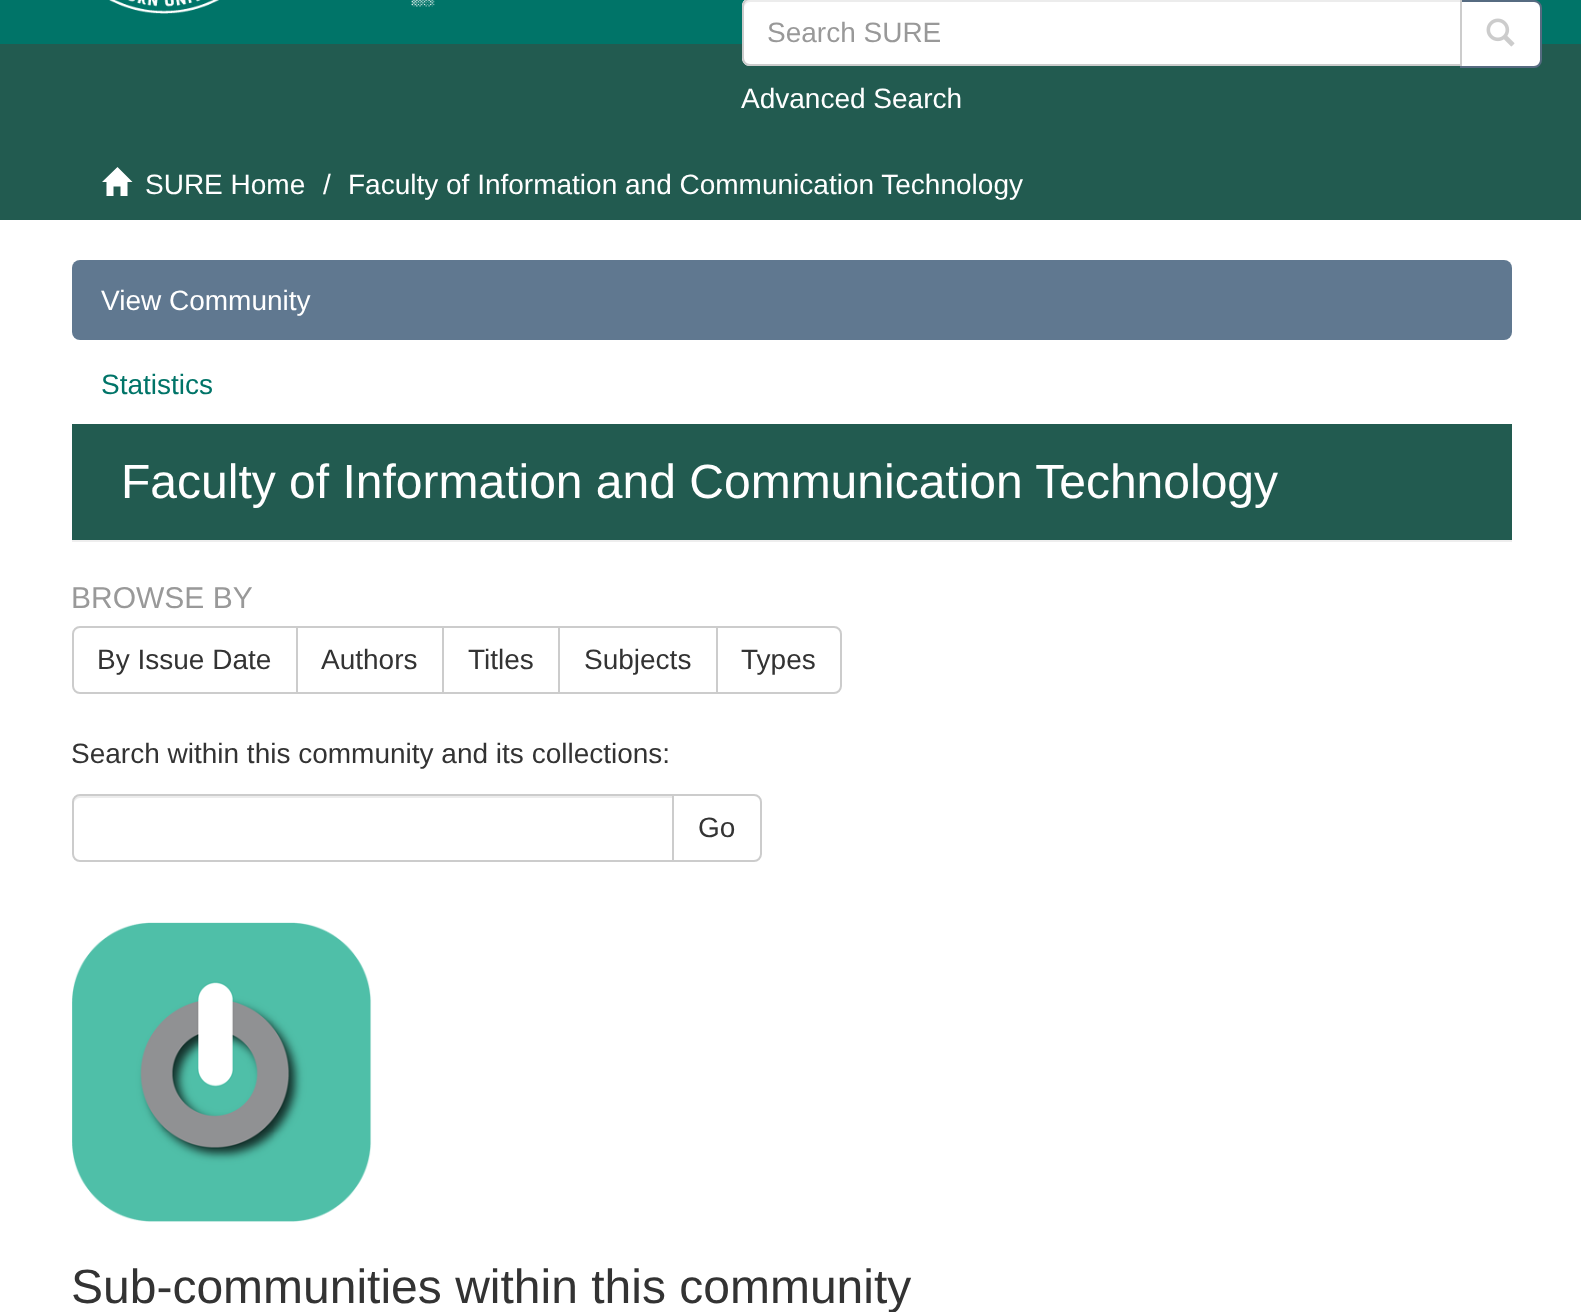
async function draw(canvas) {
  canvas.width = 1581
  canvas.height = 1312
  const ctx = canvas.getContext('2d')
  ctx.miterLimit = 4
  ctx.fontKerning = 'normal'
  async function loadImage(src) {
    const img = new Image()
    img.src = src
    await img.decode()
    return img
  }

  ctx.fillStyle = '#fff'
  ctx.fillRect(0, 0, 1581, 1312)
  ctx.fillStyle = '#007468'
  ctx.fillRect(0, 0, 1581, 44)
  ctx.drawImage(await loadImage('image0.png'), 109, 0, 110, 14)
  ctx.drawImage(await loadImage('image1.png'), 411, 0, 24, 7)
  ctx.fillStyle = '#225b50'
  ctx.fillRect(0, 44, 1581, 176)
  ctx.fillStyle = '#fff'
  ctx.beginPath()
  ctx.roundRect(1461, 1, 80, 66, [0, 7, 7, 0])
  ctx.fill()
  ctx.strokeStyle = '#566b81'
  ctx.lineWidth = 2
  ctx.stroke()
  ctx.beginPath()
  ctx.moveTo(750, -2)
  ctx.lineTo(1462, -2)
  ctx.lineTo(1462, 66)
  ctx.lineTo(750, 66)
  ctx.bezierCurveTo(745.5, 66, 742, 62.5, 742, 58)
  ctx.lineTo(742, 6)
  ctx.bezierCurveTo(742, 1.5, 745.5, -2, 750, -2)
  ctx.closePath()
  ctx.fill()
  ctx.fillStyle = '#ececec'
  ctx.beginPath()
  ctx.moveTo(750, 2)
  ctx.lineTo(1460, 2)
  ctx.lineTo(1460, 0)
  ctx.lineTo(750, 0)
  ctx.bezierCurveTo(747, 0, 744, 3, 744, 6)
  ctx.lineTo(744, 8)
  ctx.bezierCurveTo(744, 5, 747, 2, 750, 2)
  ctx.closePath()
  ctx.fill()
  ctx.beginPath()
  ctx.moveTo(750, -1)
  ctx.lineTo(1461, -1)
  ctx.lineTo(1461, 65)
  ctx.lineTo(750, 65)
  ctx.bezierCurveTo(746, 65, 743, 62, 743, 58)
  ctx.lineTo(743, 6)
  ctx.bezierCurveTo(743, 2, 746, -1, 750, -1)
  ctx.closePath()
  ctx.strokeStyle = '#ccc'
  ctx.stroke()
  ctx.font = '28px Liberation Sans'
  ctx.fillStyle = '#999'
  ctx.fillText('Search SURE', 767, 42)
  ctx.drawImage(await loadImage('image2.png'), 1486, 18, 29, 29)
  ctx.fillStyle = '#fff'
  ctx.fillText('Advanced Search', 741, 108)
  ctx.beginPath()
  ctx.moveTo(102, 182)
  ctx.lineTo(117.5, 167)
  ctx.lineTo(132.5, 182)
  ctx.lineTo(127.5, 182)
  ctx.lineTo(127.5, 196)
  ctx.lineTo(120.5, 196)
  ctx.lineTo(120.5, 186.5)
  ctx.lineTo(113.5, 186.5)
  ctx.lineTo(113.5, 196)
  ctx.lineTo(106.5, 196)
  ctx.lineTo(106.5, 182)
  ctx.closePath()
  ctx.fill()
  ctx.fillText('SURE Home', 145, 194)
  ctx.fillText('/', 323, 194)
  ctx.fillText('Faculty of Information and Communication Technology', 348, 194)
  ctx.fillStyle = '#607890'
  ctx.beginPath()
  ctx.roundRect(72, 260, 1440, 80, 8)
  ctx.fill()
  ctx.fillStyle = '#fff'
  ctx.fillText('View Community', 101, 310)
  ctx.fillStyle = '#007468'
  ctx.fillText('Statistics', 101, 394)
  ctx.fillStyle = '#225b50'
  ctx.fillRect(72, 424, 1440, 116)
  ctx.fillStyle = '#eee'
  ctx.fillRect(72, 540, 1440, 2)
  ctx.font = '48px Liberation Sans'
  ctx.fillStyle = '#fff'
  ctx.fillText('Faculty of Information and Communication Technology', 121, 498)
  ctx.font = '30px Liberation Sans'
  ctx.fillStyle = '#999'
  ctx.fillText('BROWSE BY', 71, 608)
  ctx.beginPath()
  ctx.roundRect(73, 627, 224, 66, [7, 0, 0, 7])
  ctx.stroke()
  ctx.font = '28px Liberation Sans'
  ctx.fillStyle = '#333'
  ctx.fillText('By Issue Date', 97, 669)
  ctx.strokeRect(297, 627, 146, 66)
  ctx.fillText('Authors', 321, 669)
  ctx.strokeRect(443, 627, 116, 66)
  ctx.fillText('Titles', 468, 669)
  ctx.strokeRect(559, 627, 158, 66)
  ctx.fillText('Subjects', 584, 669)
  ctx.fillStyle = '#fff'
  ctx.beginPath()
  ctx.roundRect(717, 627, 124, 66, [0, 7, 7, 0])
  ctx.fill()
  ctx.stroke()
  ctx.fillStyle = '#333'
  ctx.fillText('Types', 741, 669)
  ctx.fillText('Search within this community and its collections:', 71, 763)
  ctx.beginPath()
  ctx.roundRect(673, 795, 88, 66, [0, 7, 7, 0])
  ctx.stroke()
  ctx.fillStyle = '#fff'
  ctx.beginPath()
  ctx.roundRect(72, 794, 602, 68, [8, 0, 0, 8])
  ctx.fill()
  ctx.fillStyle = '#ececec'
  ctx.beginPath()
  ctx.moveTo(80, 798)
  ctx.lineTo(672, 798)
  ctx.lineTo(672, 796)
  ctx.lineTo(80, 796)
  ctx.bezierCurveTo(75, 796, 74, 800, 74, 804)
  ctx.bezierCurveTo(74, 801, 77, 798, 80, 798)
  ctx.closePath()
  ctx.fill()
  ctx.beginPath()
  ctx.roundRect(73, 795, 600, 66, [7, 0, 0, 7])
  ctx.stroke()
  ctx.fillStyle = '#333'
  ctx.fillText('Go', 698, 837)
  ctx.drawImage(await loadImage('image3.png'), 72, 922, 300, 300)
  ctx.font = '48px Liberation Sans'
  ctx.fillText('Sub-communities within this community', 71, 1303)
}

draw(document.querySelector('canvas'))
